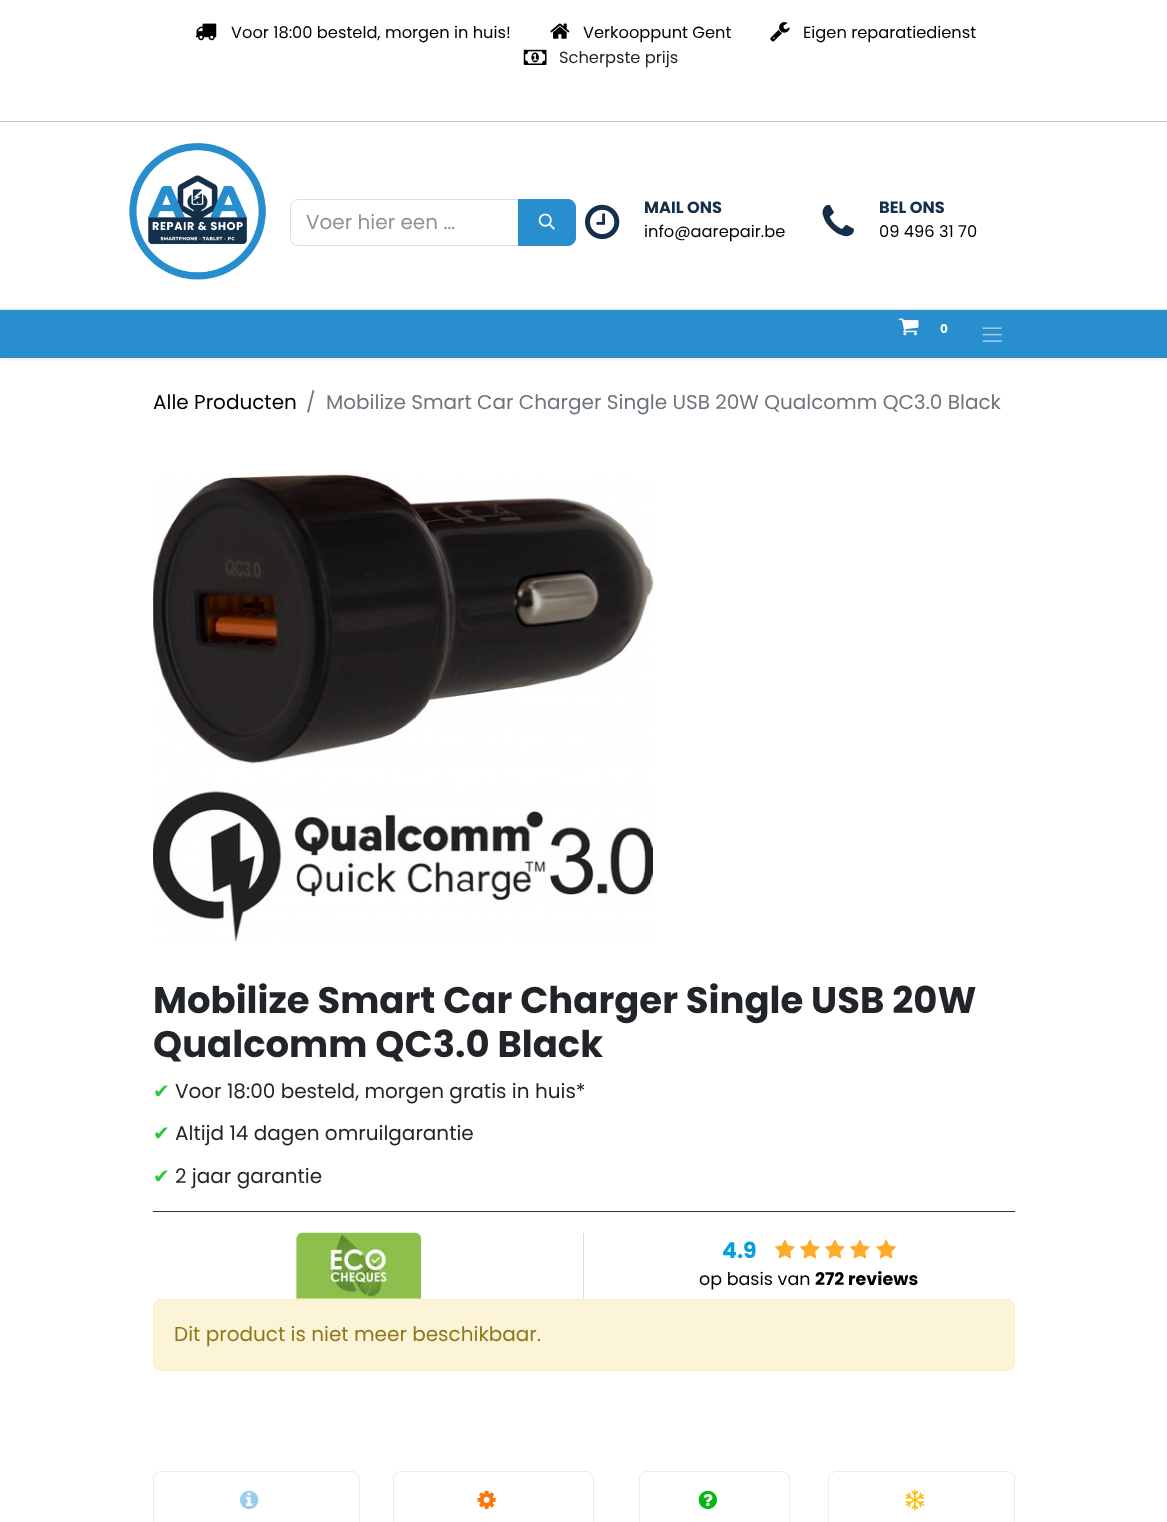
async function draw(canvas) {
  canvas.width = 1167
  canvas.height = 1522
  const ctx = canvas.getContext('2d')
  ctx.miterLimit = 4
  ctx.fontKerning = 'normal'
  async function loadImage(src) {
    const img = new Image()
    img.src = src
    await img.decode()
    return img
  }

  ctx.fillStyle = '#fff'
  ctx.fillRect(0, 0, 1167, 1522)
  ctx.fillStyle = '#0000001a'
  ctx.filter = 'blur(2px)'
  ctx.beginPath()
  ctx.rect(0, 311, 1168, 48)
  ctx.fill()
  ctx.filter = 'none'
  ctx.fillStyle = '#fff'
  ctx.fillRect(4, 308, 1160, 1)
  ctx.fillStyle = '#e6e6e6'
  ctx.fillRect(0, 309, 1167, 1)
  ctx.drawImage(await loadImage('image0.png'), 195, 23, 22, 18)
  ctx.font = '16.25px Poppins'
  ctx.fillStyle = '#000'
  ctx.fillText('Voor 18:00 besteld, morgen in huis!', 231, 38)
  ctx.drawImage(await loadImage('image1.png'), 550, 23, 20, 16)
  ctx.fillText('Verkooppunt Gent', 583, 38)
  ctx.drawImage(await loadImage('image2.png'), 770, 22, 20, 20)
  ctx.fillText('Eigen reparatiedienst', 803, 38)
  ctx.drawImage(await loadImage('image3.png'), 523, 49, 24, 16)
  ctx.fillStyle = '#212529'
  ctx.fillText('Scherpste prijs', 559, 63)
  ctx.fillStyle = '#c9c9c9'
  ctx.fillRect(0, 121, 1167, 1)
  ctx.drawImage(await loadImage('image4.png'), 129, 143, 137, 137)
  ctx.beginPath()
  ctx.roundRect(290.5, 199.5, 228, 46, [7.5, 0, 0, 7.5])
  ctx.strokeStyle = '#dededf'
  ctx.stroke()
  ctx.font = '20px Poppins'
  ctx.fillStyle = '#909294'
  ctx.fillText('Voer hier een …', 306, 229)
  ctx.fillStyle = '#298ece'
  ctx.beginPath()
  ctx.roundRect(518.5, 199.5, 57, 46, [0, 7.5, 7.5, 0])
  ctx.fill()
  ctx.strokeStyle = '#298ece'
  ctx.stroke()
  ctx.drawImage(await loadImage('image5.png'), 538, 213, 17, 17)
  ctx.drawImage(await loadImage('image6.png'), 585, 204, 35, 36)
  ctx.font = 'bold 16.25px Poppins'
  ctx.fillStyle = '#132f4a'
  ctx.fillText('MAIL ONS', 644, 213)
  ctx.font = '16.25px Poppins'
  ctx.fillStyle = '#000'
  ctx.fillText('info@aarepair.be', 644, 237)
  ctx.drawImage(await loadImage('image7.png'), 822, 204, 32, 33)
  ctx.font = 'bold 16.25px Poppins'
  ctx.fillStyle = '#132f4a'
  ctx.fillText('BEL ONS', 879, 213)
  ctx.font = '16.25px Poppins'
  ctx.fillStyle = '#000'
  ctx.fillText('09 496 31 70', 879, 237)
  ctx.fillStyle = '#298ece'
  ctx.fillRect(0, 310, 1167, 48)
  ctx.drawImage(await loadImage('image8.png'), 898, 318, 21, 18)
  ctx.font = 'bold 12px Poppins'
  ctx.fillStyle = '#fff'
  ctx.fillText('0', 940, 333)
  ctx.drawImage(await loadImage('image9.png'), 982, 327, 20, 15)
  ctx.font = '20px Poppins'
  ctx.fillStyle = '#000'
  ctx.fillText('Alle Producten', 153, 409)
  ctx.fillStyle = '#6c757d'
  ctx.fillText('/', 306, 409)
  ctx.fillText('Mobilize Smart Car Charger Single USB 20W Qualcomm QC3.0 Black', 326, 409)
  ctx.drawImage(await loadImage('image10.png'), 153, 472, 500, 470)
  ctx.font = 'bold 37px Poppins'
  ctx.fillStyle = '#212529'
  ctx.fillText('Mobilize Smart Car Charger Single USB 20W', 153, 1013)
  ctx.fillText('Qualcomm QC3.0 Black', 153, 1057)
  ctx.font = '20px DejaVu Sans'
  ctx.fillStyle = '#2ec43b'
  ctx.fillText('✔', 153, 1098)
  ctx.font = '20px Poppins'
  ctx.fillStyle = '#212529'
  ctx.fillText('Voor 18:00 besteld, morgen gratis in huis*', 175, 1098)
  ctx.font = '20px DejaVu Sans'
  ctx.fillStyle = '#2ec43b'
  ctx.fillText('✔', 153, 1140)
  ctx.font = '20px Poppins'
  ctx.fillStyle = '#212529'
  ctx.fillText('Altijd 14 dagen omruilgarantie', 175, 1140)
  ctx.font = '20px DejaVu Sans'
  ctx.fillStyle = '#2ec43b'
  ctx.fillText('✔', 153, 1183)
  ctx.font = '20px Poppins'
  ctx.fillStyle = '#212529'
  ctx.fillText('2 jaar garantie', 175, 1183)
  ctx.fillStyle = '#333'
  ctx.fillRect(153, 1211, 862, 1)
  ctx.fillStyle = '#cfdfef'
  ctx.fillRect(583, 1233, 1, 66)
  ctx.drawImage(await loadImage('image11.png'), 296, 1232, 126, 67)
  ctx.font = 'bold 22px Poppins'
  ctx.fillStyle = '#049ee2'
  ctx.fillText('4.9', 722, 1258)
  ctx.drawImage(await loadImage('image12.png'), 775, 1239, 20, 20)
  ctx.drawImage(await loadImage('image12.png'), 800, 1239, 20, 20)
  ctx.drawImage(await loadImage('image12.png'), 825, 1239, 20, 20)
  ctx.drawImage(await loadImage('image12.png'), 850, 1239, 20, 20)
  ctx.drawImage(await loadImage('image13.png'), 876, 1239, 20, 20)
  ctx.font = '17.5px Poppins'
  ctx.fillStyle = '#000'
  ctx.fillText('op basis van', 699, 1285)
  ctx.font = 'bold 17.5px Poppins'
  ctx.fillText('272 reviews', 815, 1285)
  ctx.fillStyle = '#fcf4d6'
  ctx.beginPath()
  ctx.roundRect(153.5, 1299.5, 861, 71, 7.5)
  ctx.fill()
  ctx.strokeStyle = '#faeec1'
  ctx.stroke()
  ctx.font = '20px Poppins'
  ctx.fillStyle = '#8f771d'
  ctx.fillText('Dit product is niet meer beschikbaar.', 174, 1341)
  ctx.beginPath()
  ctx.roundRect(153.5, 1471.5, 206, 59, 7.5)
  ctx.strokeStyle = '#e9ebec'
  ctx.stroke()
  ctx.drawImage(await loadImage('image14.png'), 240, 1490, 19, 19)
  ctx.beginPath()
  ctx.roundRect(393.5, 1471.5, 200, 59, 7.5)
  ctx.stroke()
  ctx.drawImage(await loadImage('image15.png'), 477, 1490, 19, 19)
  ctx.beginPath()
  ctx.roundRect(639.5, 1471.5, 150, 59, 7.5)
  ctx.stroke()
  ctx.drawImage(await loadImage('image16.png'), 698, 1490, 19, 19)
  ctx.beginPath()
  ctx.roundRect(828.5, 1471.5, 186, 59, 7.5)
  ctx.stroke()
  ctx.drawImage(await loadImage('image17.png'), 905, 1489, 20, 22)
}

draw(document.querySelector('canvas'))
